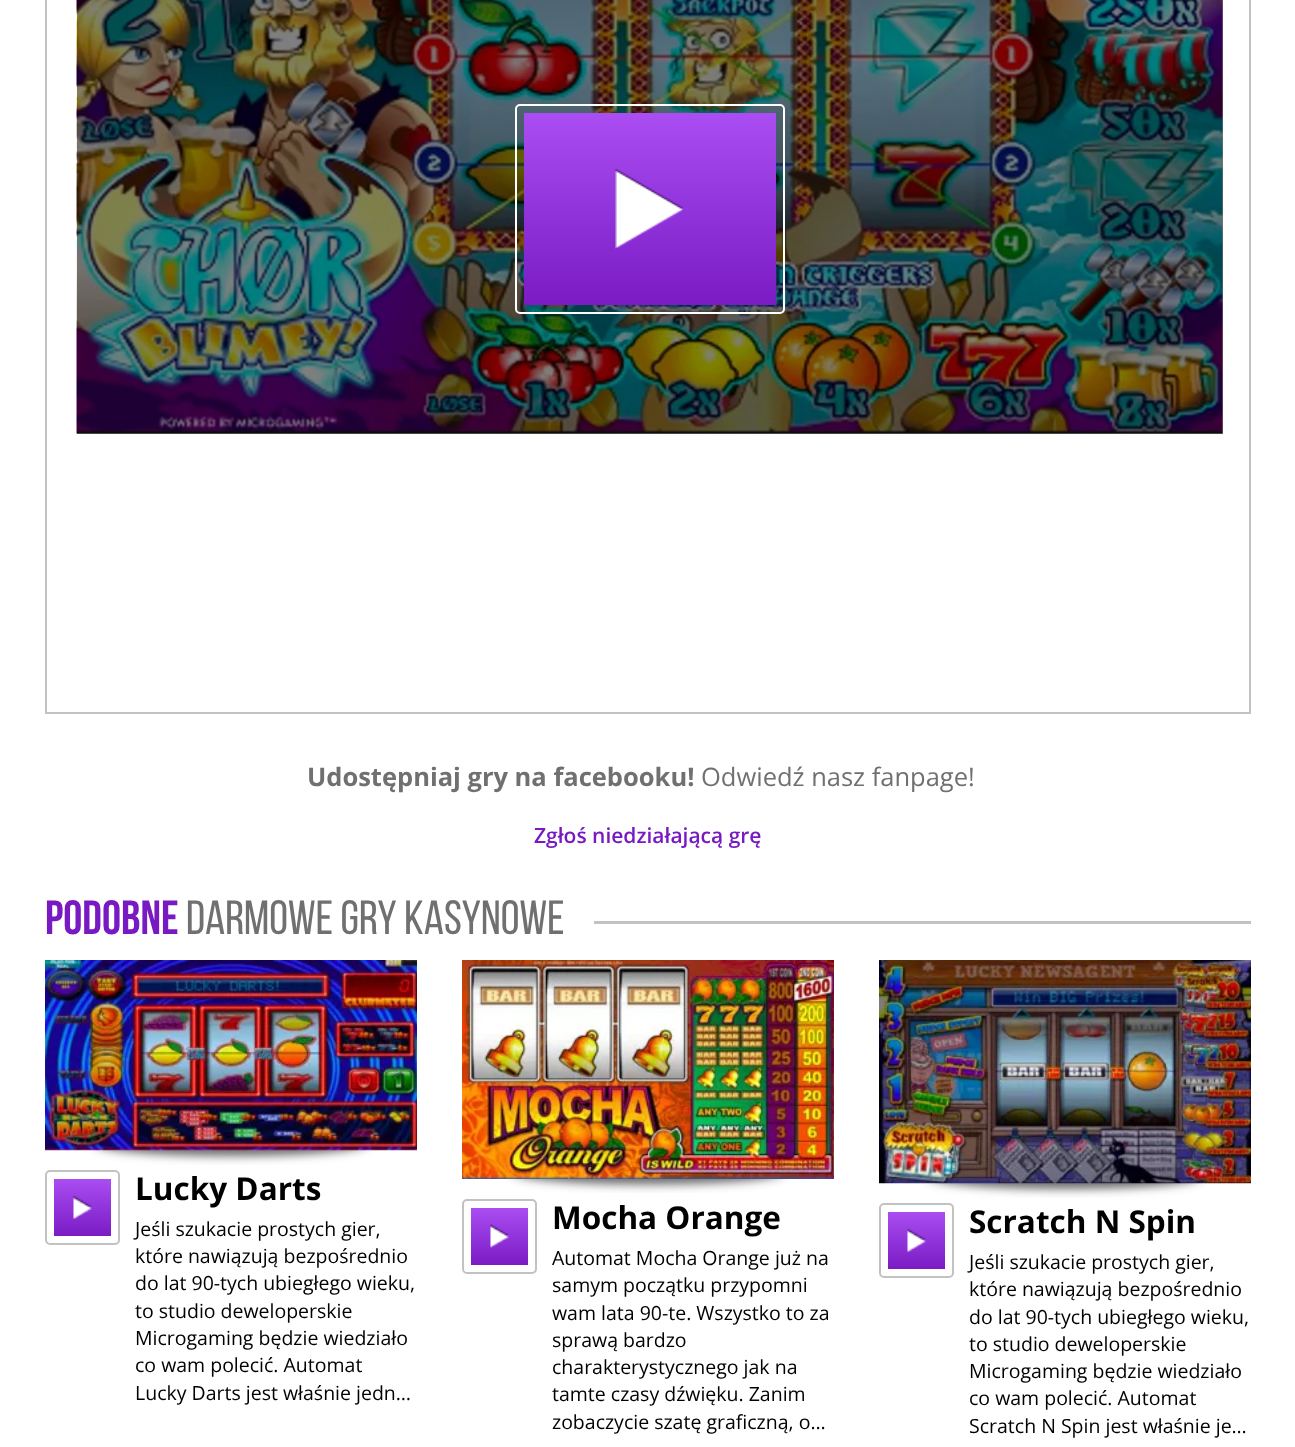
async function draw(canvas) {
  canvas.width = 1295
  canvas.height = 1447
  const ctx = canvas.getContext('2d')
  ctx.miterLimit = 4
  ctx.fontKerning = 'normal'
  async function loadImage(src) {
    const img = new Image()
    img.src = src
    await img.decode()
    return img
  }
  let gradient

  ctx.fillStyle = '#fff'
  ctx.fillRect(0, 0, 1295, 1447)
  ctx.fillStyle = '#808080'
  ctx.fillRect(77, 0, 1146, 434)
  ctx.strokeStyle = '#c2c2c2'
  ctx.lineWidth = 2
  ctx.strokeRect(46, -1, 1204, 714)
  ctx.drawImage(await loadImage('image0.png'), 76, 0, 1147, 434)
  ctx.beginPath()
  ctx.roundRect(516, 105, 268, 208, 4)
  ctx.strokeStyle = '#fff'
  ctx.stroke()
  gradient = ctx.createLinearGradient(650, 113, 650, 305)
  gradient.addColorStop(0, '#aa4df2')
  gradient.addColorStop(1, '#7a1bc4')
  ctx.fillStyle = gradient
  ctx.fillRect(524, 113, 252, 192)
  ctx.drawImage(await loadImage('image1.png'), 615, 169, 68, 80)
  ctx.font = 'bold 25.5px Open Sans'
  ctx.fillStyle = '#707070'
  ctx.fillText('Udostępniaj gry na facebooku!', 307, 786)
  ctx.font = '25.5px Open Sans'
  ctx.fillText('Odwiedź nasz fanpage!', 701, 786)
  ctx.font = '600 21px Open Sans'
  ctx.fillStyle = '#7819c2'
  ctx.fillText('Zgłoś niedziałającą grę', 534, 843)
  ctx.font = 'bold 48px Bebas Neue'
  ctx.fillText('Podobne', 45, 934)
  ctx.font = '48px Bebas Neue'
  ctx.fillStyle = '#707070'
  ctx.fillText('darmowe gry kasynowe', 186, 934)
  ctx.fillStyle = '#c2c2c2'
  ctx.fillRect(594, 921, 657, 3)
  ctx.drawImage(await loadImage('image3.png'), 89, 1150, 284, 15)
  ctx.drawImage(await loadImage('image2.png'), 45, 960, 372, 191)
  ctx.beginPath()
  ctx.roundRect(46, 1171, 73, 73, 4)
  ctx.strokeStyle = '#c2c2c2'
  ctx.stroke()
  gradient = ctx.createLinearGradient(83, 1179, 83, 1236)
  gradient.addColorStop(0, '#aa4df2')
  gradient.addColorStop(1, '#7a1bc4')
  ctx.fillStyle = gradient
  ctx.fillRect(54, 1179, 57, 57)
  ctx.drawImage(await loadImage('image4.png'), 73, 1196, 19, 23)
  ctx.font = 'bold 31.5px Open Sans'
  ctx.fillStyle = '#000'
  ctx.fillText('Lucky Darts', 135, 1200)
  ctx.font = '19.5px Open Sans'
  ctx.fillText('Jeśli szukacie prostych gier,', 135, 1236)
  ctx.fillText('które nawiązują bezpośrednio', 135, 1263)
  ctx.fillText('do lat 90-tych ubiegłego wieku,', 135, 1290)
  ctx.fillText('to studio deweloperskie', 135, 1318)
  ctx.fillText('Microgaming będzie wiedziało', 135, 1345)
  ctx.fillText('co wam polecić. Automat', 135, 1372)
  ctx.fillText('Lucky Darts jest właśnie jedn…', 135, 1400)
  ctx.drawImage(await loadImage('image5.png'), 462, 960, 372, 219)
  ctx.drawImage(await loadImage('image6.png'), 506, 1179, 284, 14)
  ctx.beginPath()
  ctx.roundRect(463, 1200, 73, 73, 4)
  ctx.stroke()
  gradient = ctx.createLinearGradient(500, 1208, 500, 1265)
  gradient.addColorStop(0, '#aa4df2')
  gradient.addColorStop(1, '#7a1bc4')
  ctx.fillStyle = gradient
  ctx.fillRect(471, 1208, 57, 57)
  ctx.drawImage(await loadImage('image7.png'), 490, 1224, 19, 24)
  ctx.font = 'bold 31.5px Open Sans'
  ctx.fillStyle = '#000'
  ctx.fillText('Mocha Orange', 552, 1229)
  ctx.font = '19.5px Open Sans'
  ctx.fillText('Automat Mocha Orange już na', 552, 1265)
  ctx.fillText('samym początku przypomni', 552, 1292)
  ctx.fillText('wam lata 90-te. Wszystko to za', 552, 1320)
  ctx.fillText('sprawą bardzo', 552, 1347)
  ctx.fillText('charakterystycznego jak na', 552, 1374)
  ctx.fillText('tamte czasy dźwięku. Zanim', 552, 1401)
  ctx.fillText('zobaczycie szatę graficzną, o…', 552, 1429)
  ctx.drawImage(await loadImage('image3.png'), 923, 1183, 284, 15)
  ctx.drawImage(await loadImage('image8.png'), 879, 960, 372, 224)
  ctx.beginPath()
  ctx.roundRect(880, 1204, 73, 73, 4)
  ctx.stroke()
  gradient = ctx.createLinearGradient(917, 1212, 917, 1269)
  gradient.addColorStop(0, '#aa4df2')
  gradient.addColorStop(1, '#7a1bc4')
  ctx.fillStyle = gradient
  ctx.fillRect(888, 1212, 57, 57)
  ctx.drawImage(await loadImage('image9.png'), 907, 1229, 19, 23)
  ctx.font = 'bold 31.5px Open Sans'
  ctx.fillStyle = '#000'
  ctx.fillText('Scratch N Spin', 969, 1233)
  ctx.font = '19.5px Open Sans'
  ctx.fillText('Jeśli szukacie prostych gier,', 969, 1269)
  ctx.fillText('które nawiązują bezpośrednio', 969, 1296)
  ctx.fillText('do lat 90-tych ubiegłego wieku,', 969, 1324)
  ctx.fillText('to studio deweloperskie', 969, 1351)
  ctx.fillText('Microgaming będzie wiedziało', 969, 1378)
  ctx.fillText('co wam polecić. Automat', 969, 1405)
  ctx.fillText('Scratch N Spin jest właśnie je…', 969, 1433)
}

draw(document.querySelector('canvas'))
